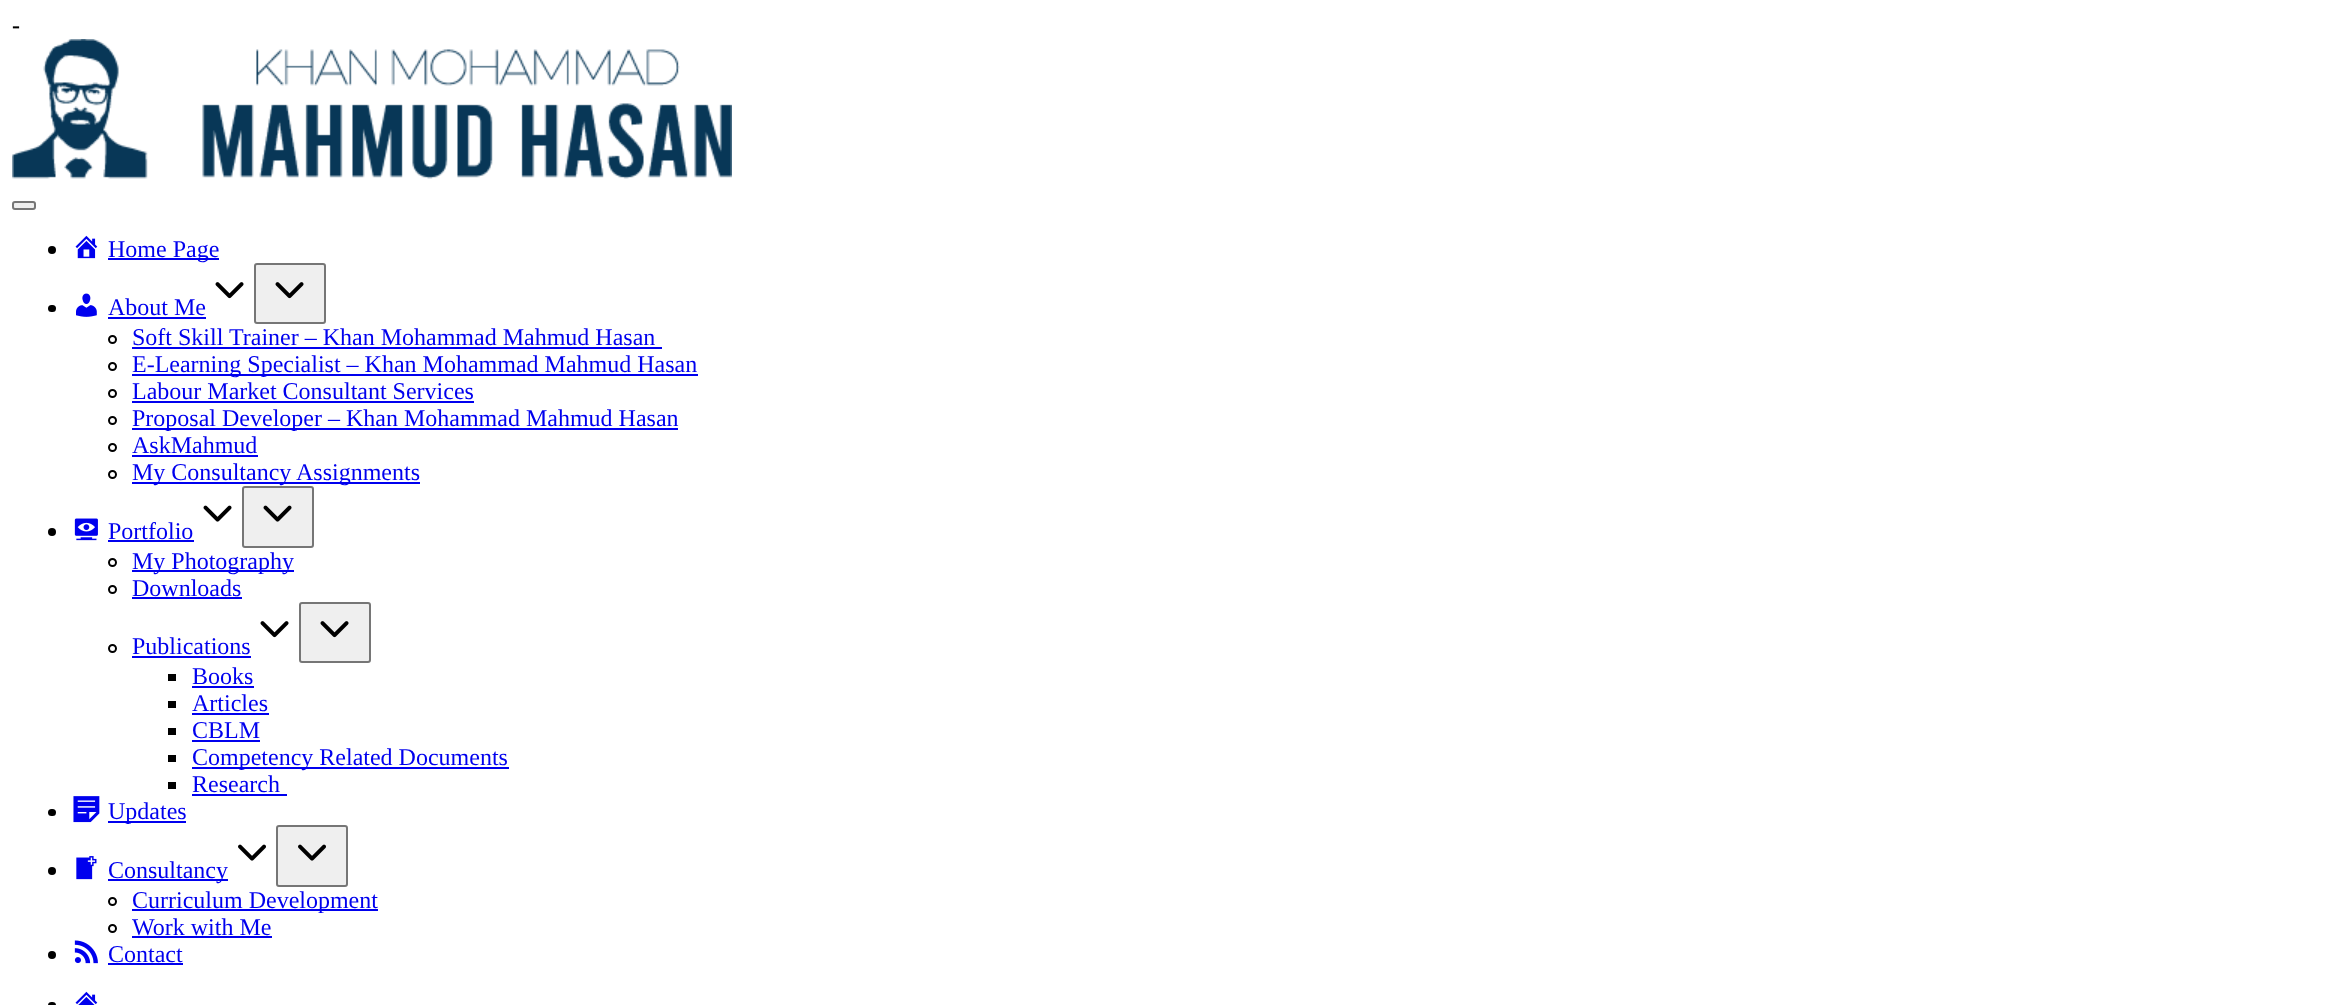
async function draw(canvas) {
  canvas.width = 2343
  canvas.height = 1005
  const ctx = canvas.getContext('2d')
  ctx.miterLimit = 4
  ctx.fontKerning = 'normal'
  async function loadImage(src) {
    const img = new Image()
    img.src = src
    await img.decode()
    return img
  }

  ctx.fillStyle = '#fff'
  ctx.fillRect(0, 0, 2343, 1005)
  ctx.font = 'bold 24px Liberation Serif'
  ctx.fillStyle = '#000'
  ctx.fillText('-', 12, 33)
  ctx.drawImage(await loadImage('image0.png'), 12, 39, 720, 140)
  ctx.fillStyle = '#efefef'
  ctx.beginPath()
  ctx.roundRect(13, 202, 22, 7, 2)
  ctx.fill()
  ctx.strokeStyle = '#767676'
  ctx.lineWidth = 2
  ctx.stroke()
  ctx.fillStyle = '#000'
  ctx.beginPath()
  ctx.arc(52, 250, 4, 0, 2 * Math.PI)
  ctx.fill()
  ctx.drawImage(await loadImage('image1.png'), 75, 235, 23, 24)
  ctx.fillStyle = '#00e'
  ctx.fillRect(108, 258, 111, 2)
  ctx.font = '24px Liberation Serif'
  ctx.fillText('Home Page', 108, 257)
  ctx.fillStyle = '#000'
  ctx.beginPath()
  ctx.roundRect(48, 305, 8, 7, 3.5)
  ctx.fill()
  ctx.drawImage(await loadImage('image2.png'), 215, 282, 29, 17)
  ctx.drawImage(await loadImage('image3.png'), 76, 293, 21, 24)
  ctx.fillStyle = '#00e'
  ctx.fillText('About Me', 108, 315)
  ctx.fillRect(108, 317, 98, 2)
  ctx.fillStyle = '#efefef'
  ctx.beginPath()
  ctx.roundRect(255, 264, 70, 59, 2)
  ctx.fill()
  ctx.stroke()
  ctx.drawImage(await loadImage('image4.png'), 275, 282, 29, 17)
  ctx.beginPath()
  ctx.arc(112.5, 339.5, 3.5, 0, 2 * Math.PI)
  ctx.strokeStyle = '#000'
  ctx.stroke()
  ctx.fillStyle = '#00e'
  ctx.fillText('Soft Skill Trainer – Khan Mohammad Mahmud Hasan', 132, 345)
  ctx.fillRect(132, 347, 530, 2)
  ctx.beginPath()
  ctx.arc(112.5, 366.5, 3.5, 0, 2 * Math.PI)
  ctx.stroke()
  ctx.fillRect(132, 374, 566, 2)
  ctx.fillText('E-Learning Specialist – Khan Mohammad Mahmud Hasan', 132, 372)
  ctx.beginPath()
  ctx.arc(112.5, 393.5, 3.5, 0, 2 * Math.PI)
  ctx.stroke()
  ctx.fillText('Labour Market Consultant Services', 132, 399)
  ctx.fillRect(132, 401, 342, 2)
  ctx.beginPath()
  ctx.arc(112.5, 420.5, 3.5, 0, 2 * Math.PI)
  ctx.stroke()
  ctx.fillRect(132, 428, 546, 2)
  ctx.fillText('Proposal Developer – Khan Mohammad Mahmud Hasan', 132, 426)
  ctx.beginPath()
  ctx.arc(112.5, 447.5, 3.5, 0, 2 * Math.PI)
  ctx.stroke()
  ctx.fillText('AskMahmud', 132, 453)
  ctx.fillRect(132, 455, 126, 2)
  ctx.beginPath()
  ctx.arc(112.5, 474.5, 3.5, 0, 2 * Math.PI)
  ctx.stroke()
  ctx.fillRect(132, 482, 288, 2)
  ctx.fillText('My Consultancy Assignments', 132, 480)
  ctx.fillStyle = '#000'
  ctx.beginPath()
  ctx.arc(52, 532, 4, 0, 2 * Math.PI)
  ctx.fill()
  ctx.drawImage(await loadImage('image5.png'), 203, 505, 29, 17)
  ctx.drawImage(await loadImage('image6.png'), 74, 518, 24, 23)
  ctx.fillStyle = '#00e'
  ctx.fillText('Portfolio', 108, 539)
  ctx.fillRect(108, 540, 86, 2)
  ctx.fillStyle = '#efefef'
  ctx.beginPath()
  ctx.roundRect(243, 487, 70, 60, 2)
  ctx.fill()
  ctx.strokeStyle = '#767676'
  ctx.stroke()
  ctx.drawImage(await loadImage('image7.png'), 263, 505, 29, 17)
  ctx.beginPath()
  ctx.arc(112.5, 562.5, 3.5, 0, 2 * Math.PI)
  ctx.strokeStyle = '#000'
  ctx.stroke()
  ctx.fillStyle = '#00e'
  ctx.fillRect(132, 570, 162, 2)
  ctx.fillText('My Photography', 132, 569)
  ctx.beginPath()
  ctx.arc(112.5, 589.5, 3.5, 0, 2 * Math.PI)
  ctx.stroke()
  ctx.fillText('Downloads', 132, 596)
  ctx.fillRect(132, 597, 110, 2)
  ctx.drawImage(await loadImage('image2.png'), 260, 621, 29, 17)
  ctx.fillStyle = '#efefef'
  ctx.beginPath()
  ctx.roundRect(300, 603, 70, 59, 2)
  ctx.fill()
  ctx.strokeStyle = '#767676'
  ctx.stroke()
  ctx.drawImage(await loadImage('image4.png'), 320, 621, 29, 17)
  ctx.beginPath()
  ctx.arc(112.5, 648.5, 3.5, 0, 2 * Math.PI)
  ctx.strokeStyle = '#000'
  ctx.stroke()
  ctx.fillStyle = '#00e'
  ctx.fillText('Publications', 132, 654)
  ctx.fillRect(132, 656, 119, 2)
  ctx.fillStyle = '#000'
  ctx.fillRect(168, 674, 8, 7)
  ctx.fillStyle = '#00e'
  ctx.fillText('Books', 192, 684)
  ctx.fillRect(192, 686, 62, 2)
  ctx.fillStyle = '#000'
  ctx.fillRect(168, 701, 8, 7)
  ctx.fillStyle = '#00e'
  ctx.fillText('Articles', 192, 711)
  ctx.fillRect(192, 713, 77, 2)
  ctx.fillStyle = '#000'
  ctx.fillRect(168, 728, 8, 7)
  ctx.fillStyle = '#00e'
  ctx.fillText('CBLM', 192, 738)
  ctx.fillRect(192, 740, 68, 2)
  ctx.fillStyle = '#000'
  ctx.fillRect(168, 755, 8, 7)
  ctx.fillStyle = '#00e'
  ctx.fillRect(192, 767, 317, 2)
  ctx.fillText('Competency Related Documents', 192, 765)
  ctx.fillStyle = '#000'
  ctx.fillRect(168, 782, 8, 7)
  ctx.fillStyle = '#00e'
  ctx.fillText('Research', 192, 792)
  ctx.fillRect(192, 794, 95, 2)
  ctx.fillStyle = '#000'
  ctx.beginPath()
  ctx.roundRect(48, 809, 8, 7, 3.5)
  ctx.fill()
  ctx.drawImage(await loadImage('image8.png'), 73, 796, 27, 27)
  ctx.fillStyle = '#00e'
  ctx.fillRect(108, 821, 78, 2)
  ctx.fillText('Updates', 108, 819)
  ctx.fillStyle = '#000'
  ctx.beginPath()
  ctx.arc(52, 871, 4, 0, 2 * Math.PI)
  ctx.fill()
  ctx.drawImage(await loadImage('image9.png'), 238, 844, 28, 17)
  ctx.drawImage(await loadImage('image10.png'), 76, 856, 21, 24)
  ctx.fillStyle = '#00e'
  ctx.fillRect(108, 879, 120, 2)
  ctx.fillText('Consultancy', 108, 878)
  ctx.fillStyle = '#efefef'
  ctx.beginPath()
  ctx.roundRect(277, 826, 70, 60, 2)
  ctx.fill()
  ctx.strokeStyle = '#767676'
  ctx.stroke()
  ctx.drawImage(await loadImage('image11.png'), 298, 844, 28, 17)
  ctx.beginPath()
  ctx.arc(112.5, 901.5, 3.5, 0, 2 * Math.PI)
  ctx.strokeStyle = '#000'
  ctx.stroke()
  ctx.fillStyle = '#00e'
  ctx.fillRect(132, 909, 246, 2)
  ctx.fillText('Curriculum Development', 132, 908)
  ctx.beginPath()
  ctx.arc(112.5, 928.5, 3.5, 0, 2 * Math.PI)
  ctx.stroke()
  ctx.fillText('Work with Me', 132, 935)
  ctx.fillRect(132, 936, 140, 2)
  ctx.fillStyle = '#000'
  ctx.beginPath()
  ctx.arc(52, 955, 4, 0, 2 * Math.PI)
  ctx.fill()
  ctx.drawImage(await loadImage('image12.png'), 74, 940, 24, 24)
  ctx.fillStyle = '#00e'
  ctx.fillText('Contact', 108, 962)
  ctx.fillRect(108, 963, 75, 2)
  ctx.fillStyle = '#000'
  ctx.beginPath()
  ctx.roundRect(48, 1002, 8, 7, 4)
  ctx.fill()
  ctx.drawImage(await loadImage('image13.png'), 75, 991, 23, 14)
}

draw(document.querySelector('canvas'))
